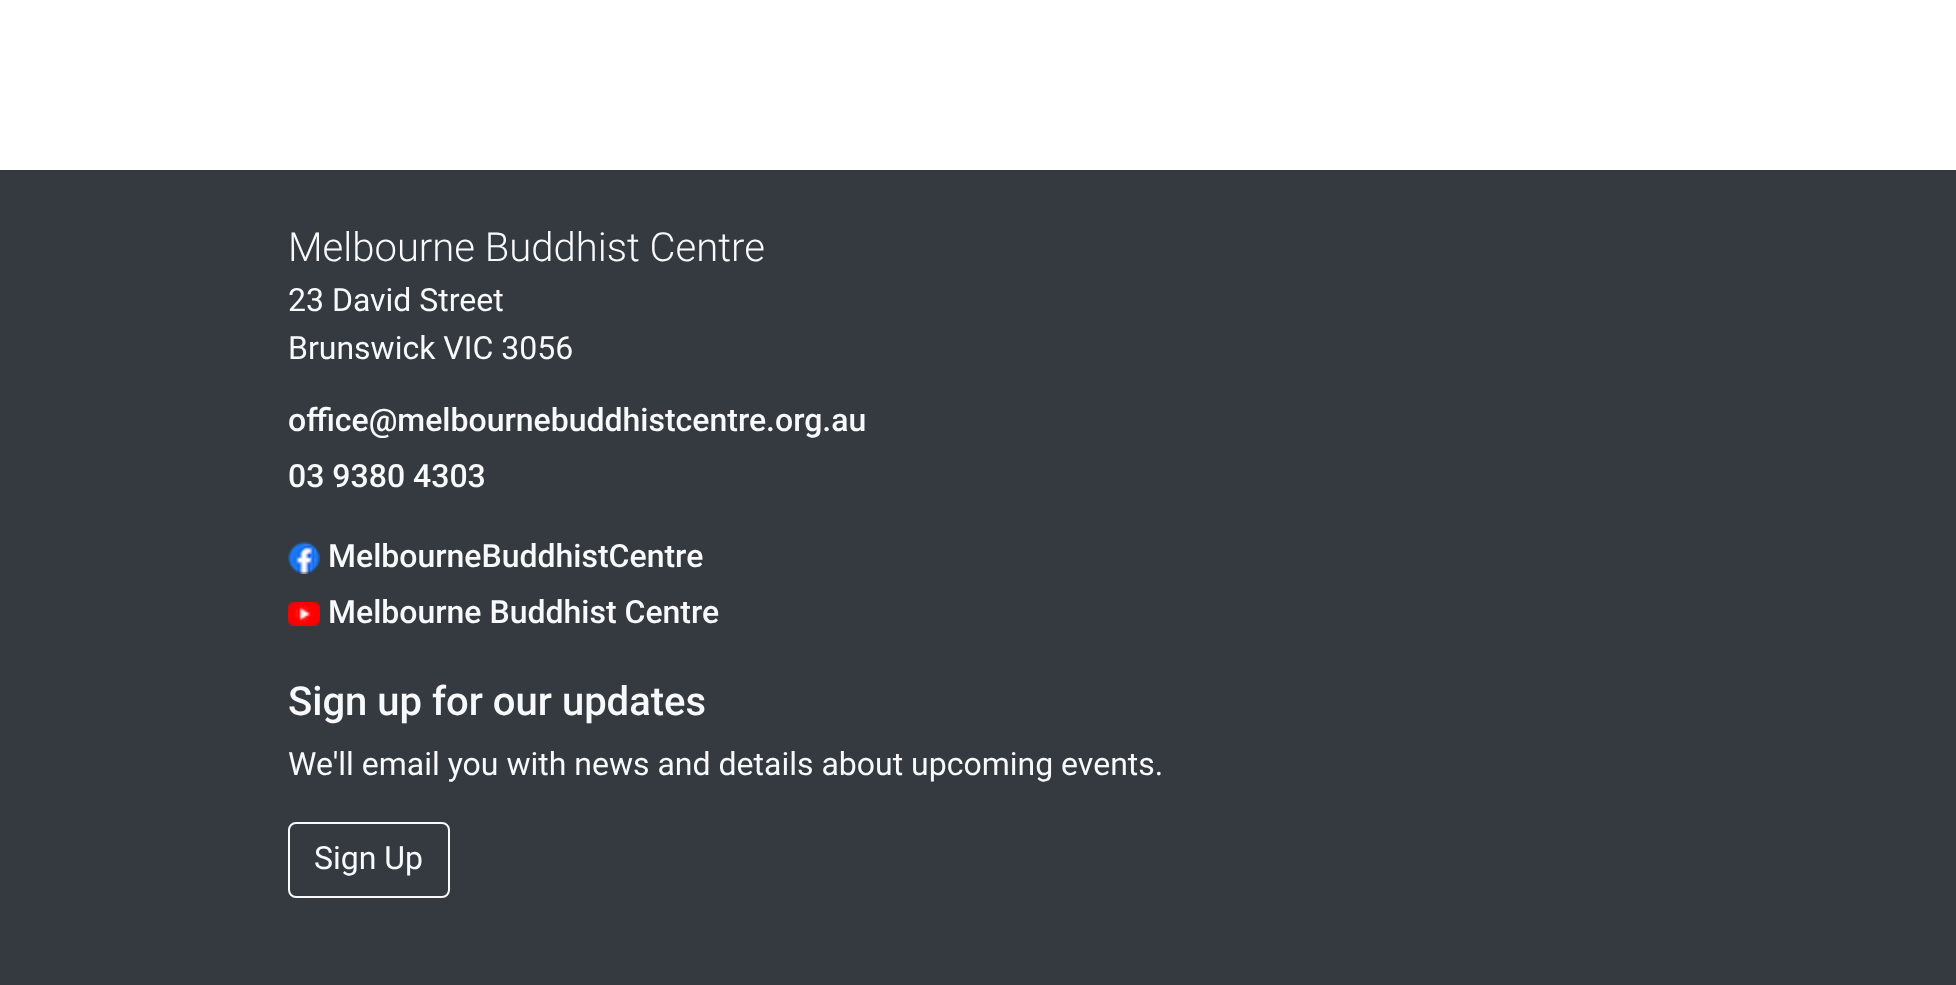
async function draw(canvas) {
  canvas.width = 1956
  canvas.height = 985
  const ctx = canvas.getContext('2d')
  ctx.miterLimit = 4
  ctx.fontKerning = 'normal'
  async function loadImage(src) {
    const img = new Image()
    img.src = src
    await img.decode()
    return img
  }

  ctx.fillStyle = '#fff'
  ctx.fillRect(0, 0, 1956, 985)
  ctx.fillStyle = '#343a40'
  ctx.fillRect(0, 170, 1956, 815)
  ctx.font = '300 40px Roboto'
  ctx.fillStyle = '#f8f9fa'
  ctx.fillText('Melbourne Buddhist Centre', 288, 261)
  ctx.font = '32px Roboto'
  ctx.fillText('23 David Street', 288, 311)
  ctx.fillText('Brunswick VIC 3056', 288, 359)
  ctx.font = '500 32px Roboto'
  ctx.fillText('office@melbournebuddhistcentre.org.au', 288, 431)
  ctx.fillText('03 9380 4303', 288, 487)
  ctx.drawImage(await loadImage('image0.png'), 288, 542, 32, 32)
  ctx.fillText('MelbourneBuddhistCentre', 328, 567)
  ctx.drawImage(await loadImage('image1.png'), 288, 602, 32, 24)
  ctx.fillText('Melbourne Buddhist Centre', 328, 623)
  ctx.font = '500 40px Roboto'
  ctx.fillText('Sign up for our updates', 288, 715)
  ctx.font = '32px Roboto'
  ctx.fillText('We\'ll email you with news and details about upcoming events.', 288, 775)
  ctx.beginPath()
  ctx.roundRect(289, 823, 160, 74, 7)
  ctx.strokeStyle = '#f8f9fa'
  ctx.lineWidth = 2
  ctx.stroke()
  ctx.fillText('Sign Up', 314, 869)
}

draw(document.querySelector('canvas'))
